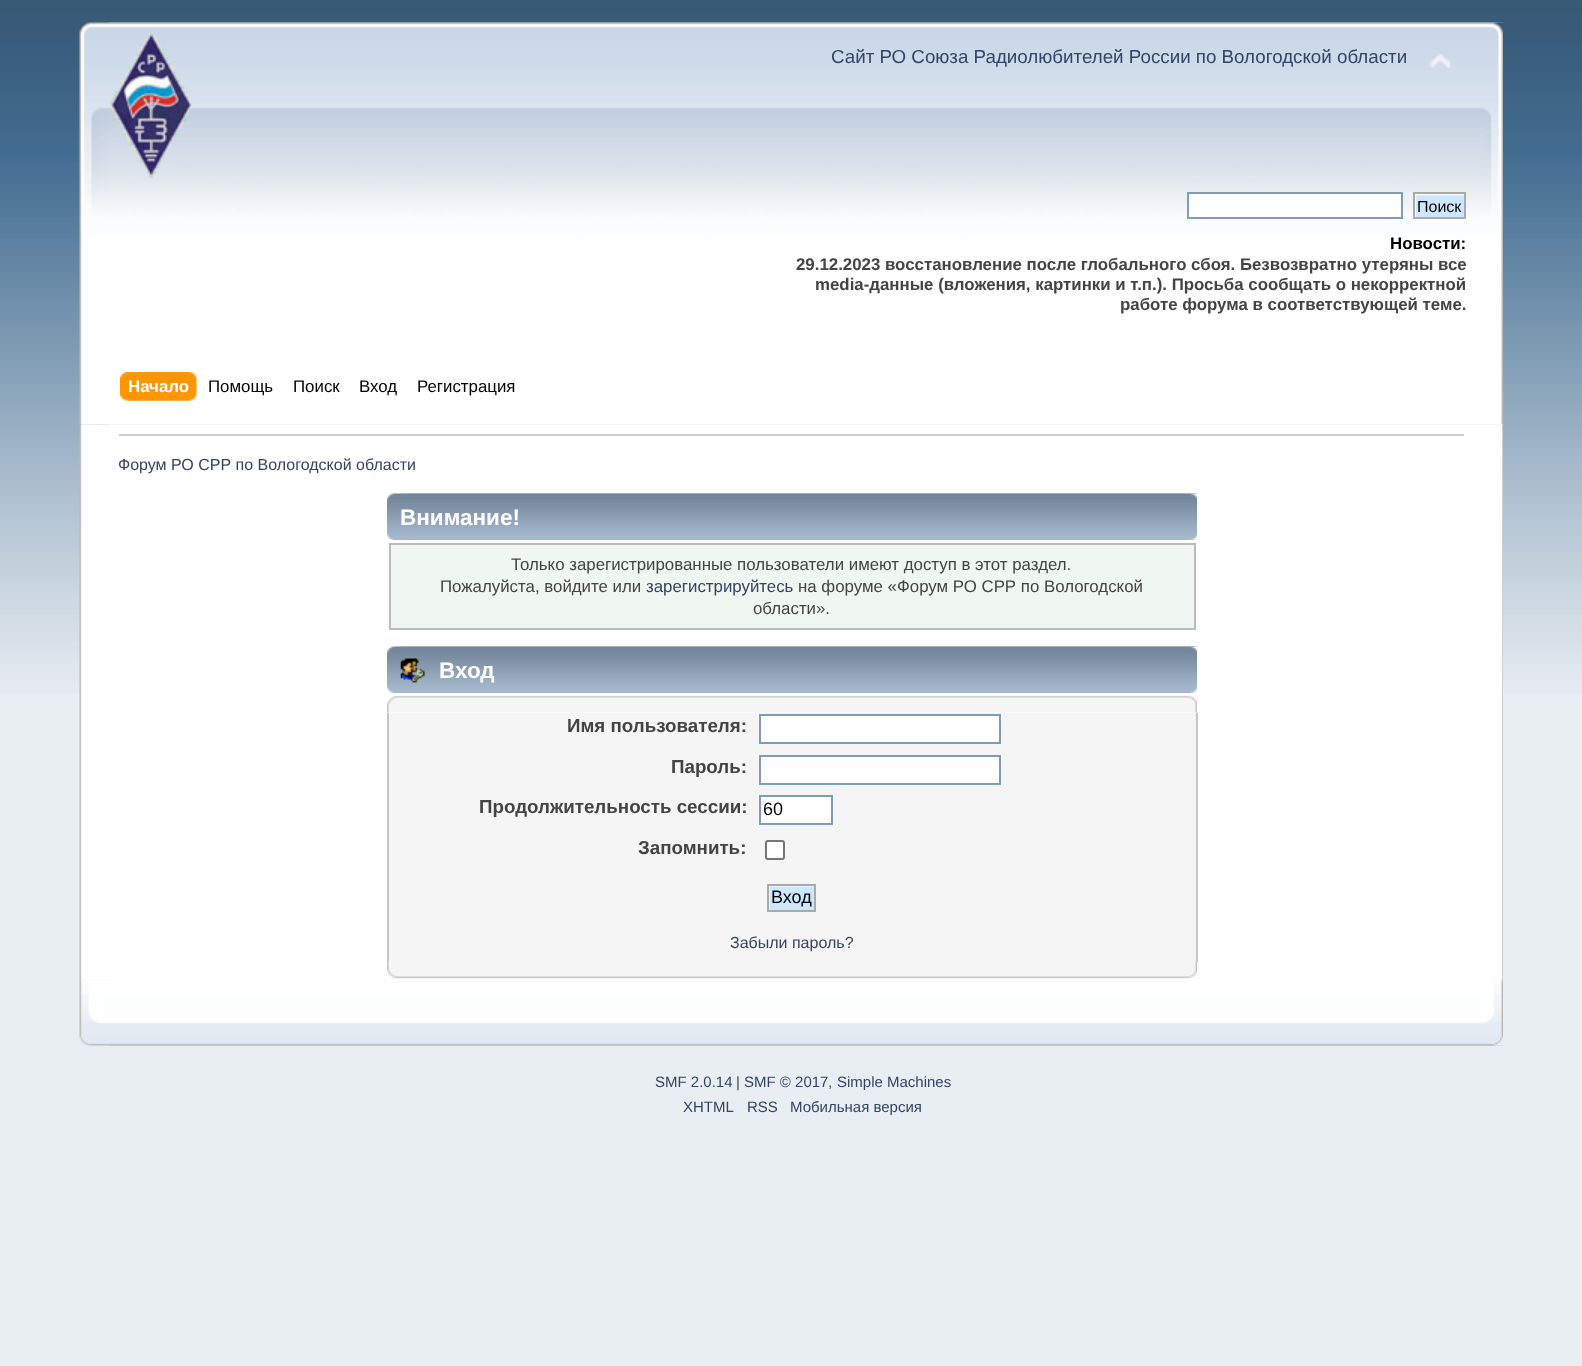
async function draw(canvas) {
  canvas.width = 1582
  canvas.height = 1366
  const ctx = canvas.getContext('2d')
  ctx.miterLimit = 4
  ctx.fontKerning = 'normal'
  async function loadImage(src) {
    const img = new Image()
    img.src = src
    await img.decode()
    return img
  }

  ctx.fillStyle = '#e9eef2'
  ctx.fillRect(0, 0, 1582, 1366)
  ctx.drawImage(await loadImage('image0.png'), 0, 0, 1582, 693)
  ctx.drawImage(await loadImage('image1.png'), 79, 22, 1424, 403)
  ctx.drawImage(await loadImage('image2.png'), 109, 22, 1394, 403)
  ctx.drawImage(await loadImage('image3.png'), 109, 31, 84, 148)
  ctx.font = '18.75px Liberation Sans'
  ctx.fillStyle = '#346'
  ctx.fillText('Сайт РО Союза Радиолюбителей России по Вологодской области', 831, 63)
  ctx.drawImage(await loadImage('image4.png'), 1429, 53, 23, 17)
  ctx.fillStyle = '#fff'
  ctx.beginPath()
  ctx.rect(1188, 193, 214, 25)
  ctx.fill()
  ctx.strokeStyle = '#7f9db9'
  ctx.lineWidth = 2
  ctx.stroke()
  ctx.drawImage(await loadImage('image5.png'), 1415, 194, 49, 23)
  ctx.strokeStyle = '#aaa'
  ctx.strokeRect(1414, 193, 51, 25)
  ctx.font = '16px Liberation Sans'
  ctx.fillStyle = '#000'
  ctx.fillText('Поиск', 1417, 212)
  ctx.font = 'bold 16.85px Liberation Sans'
  ctx.fillText('Новости:', 1390, 249)
  ctx.fillStyle = '#444'
  ctx.fillText('29.12.2023 восстановление после глобального сбоя. Безвозвратно утеряны все', 796, 270)
  ctx.fillText('media-данные (вложения, картинки и т.п.). Просьба сообщать о некорректной', 815, 290)
  ctx.fillText('работе форума в соответствующей теме.', 1120, 310)
  ctx.drawImage(await loadImage('image6.png'), 127, 372, 70, 29)
  ctx.drawImage(await loadImage('image7.png'), 120, 372, 69, 29)
  ctx.fillStyle = '#fff'
  ctx.fillText('Начало', 128, 392)
  ctx.font = '16.85px Liberation Sans'
  ctx.fillStyle = '#000'
  ctx.fillText('Помощь', 208, 392)
  ctx.fillText('Поиск', 293, 392)
  ctx.fillText('Вход', 359, 392)
  ctx.fillText('Регистрация', 417, 392)
  ctx.drawImage(await loadImage('image8.png'), 79, 424, 1424, 556)
  ctx.drawImage(await loadImage('image9.png'), 1501, 424, 2, 556)
  ctx.fillStyle = '#ccc'
  ctx.fillRect(119, 434, 1345, 2)
  ctx.font = '16px Liberation Sans'
  ctx.fillStyle = '#346'
  ctx.fillText('Форум РО СРР по Вологодской области', 118, 470)
  ctx.drawImage(await loadImage('image10.png'), 387, 493, 810, 47)
  ctx.drawImage(await loadImage('image11.png'), 400, 493, 797, 47)
  ctx.font = 'bold 22.5px Liberation Sans'
  ctx.fillStyle = '#fff'
  ctx.fillText('Внимание!', 400, 525)
  ctx.fillStyle = '#f0f6f0'
  ctx.beginPath()
  ctx.rect(390, 544, 805, 85)
  ctx.fill()
  ctx.strokeStyle = '#bbb'
  ctx.stroke()
  ctx.font = '16.85px Liberation Sans'
  ctx.fillStyle = '#444'
  ctx.fillText('Только зарегистрированные пользователи имеют доступ в этот раздел.', 511, 570)
  ctx.fillText('Пожалуйста, войдите или', 440, 592)
  ctx.fillStyle = '#346'
  ctx.fillText('зарегистрируйтесь', 646, 592)
  ctx.fillStyle = '#444'
  ctx.fillText('на форуме «Форум РО СРР по Вологодской', 798, 592)
  ctx.fillText('области».', 753, 614)
  ctx.drawImage(await loadImage('image10.png'), 387, 646, 810, 47)
  ctx.drawImage(await loadImage('image11.png'), 400, 646, 797, 47)
  ctx.drawImage(await loadImage('image12.png'), 400, 658, 25, 25)
  ctx.font = 'bold 22.5px Liberation Sans'
  ctx.fillStyle = '#fff'
  ctx.fillText('Вход', 439, 678)
  ctx.drawImage(await loadImage('image13.png'), 387, 695, 810, 18)
  ctx.drawImage(await loadImage('image14.png'), 1188, 695, 9, 18)
  ctx.fillStyle = '#f5f5f5'
  ctx.fillRect(389, 713, 807, 249)
  ctx.fillStyle = '#c5c5c5'
  ctx.fillRect(1196, 713, 2, 249)
  ctx.fillRect(387, 713, 2, 249)
  ctx.font = 'bold 18.75px Liberation Sans'
  ctx.fillStyle = '#444'
  ctx.fillText('Имя пользователя:', 567, 732)
  ctx.fillStyle = '#fff'
  ctx.beginPath()
  ctx.rect(760, 715, 240, 28)
  ctx.fill()
  ctx.strokeStyle = '#7f9db9'
  ctx.stroke()
  ctx.fillStyle = '#444'
  ctx.fillText('Пароль:', 671, 773)
  ctx.fillStyle = '#fff'
  ctx.beginPath()
  ctx.rect(760, 756, 240, 28)
  ctx.fill()
  ctx.stroke()
  ctx.fillStyle = '#444'
  ctx.fillText('Продолжительность сессии:', 479, 813)
  ctx.fillStyle = '#fff'
  ctx.beginPath()
  ctx.rect(760, 796, 72, 28)
  ctx.fill()
  ctx.stroke()
  ctx.save()
  ctx.beginPath()
  ctx.rect(764, 800, 64, 21)
  ctx.clip()
  ctx.font = '18px Liberation Sans'
  ctx.fillStyle = '#000'
  ctx.fillText('60', 763, 815)
  ctx.restore()
  ctx.fillStyle = '#444'
  ctx.fillText('Запомнить:', 638, 854)
  ctx.fillStyle = '#fff'
  ctx.beginPath()
  ctx.roundRect(766, 841, 18, 18, 2)
  ctx.fill()
  ctx.strokeStyle = '#767676'
  ctx.stroke()
  ctx.drawImage(await loadImage('image15.png'), 769, 886, 45, 24)
  ctx.strokeStyle = '#aaa'
  ctx.strokeRect(768, 885, 47, 26)
  ctx.font = '18px Liberation Sans'
  ctx.fillStyle = '#000'
  ctx.fillText('Вход', 771, 903)
  ctx.font = '16px Liberation Sans'
  ctx.fillStyle = '#346'
  ctx.fillText('Забыли пароль?', 730, 948)
  ctx.drawImage(await loadImage('image16.png'), 387, 961, 810, 18)
  ctx.drawImage(await loadImage('image17.png'), 1188, 961, 9, 18)
  ctx.drawImage(await loadImage('image18.png'), 79, 979, 1424, 67)
  ctx.drawImage(await loadImage('image19.png'), 109, 979, 1394, 67)
  ctx.font = '15px Liberation Sans'
  ctx.fillText('SMF 2.0.14', 655, 1087)
  ctx.fillStyle = '#444'
  ctx.fillText('|', 736, 1087)
  ctx.fillStyle = '#346'
  ctx.fillText('SMF © 2017', 744, 1087)
  ctx.fillStyle = '#444'
  ctx.fillText(',', 828, 1087)
  ctx.fillStyle = '#346'
  ctx.fillText('Simple Machines', 837, 1087)
  ctx.fillText('XHTML', 683, 1112)
  ctx.fillText('RSS', 747, 1112)
  ctx.fillText('Мобильная версия', 790, 1112)
}

draw(document.querySelector('canvas'))
